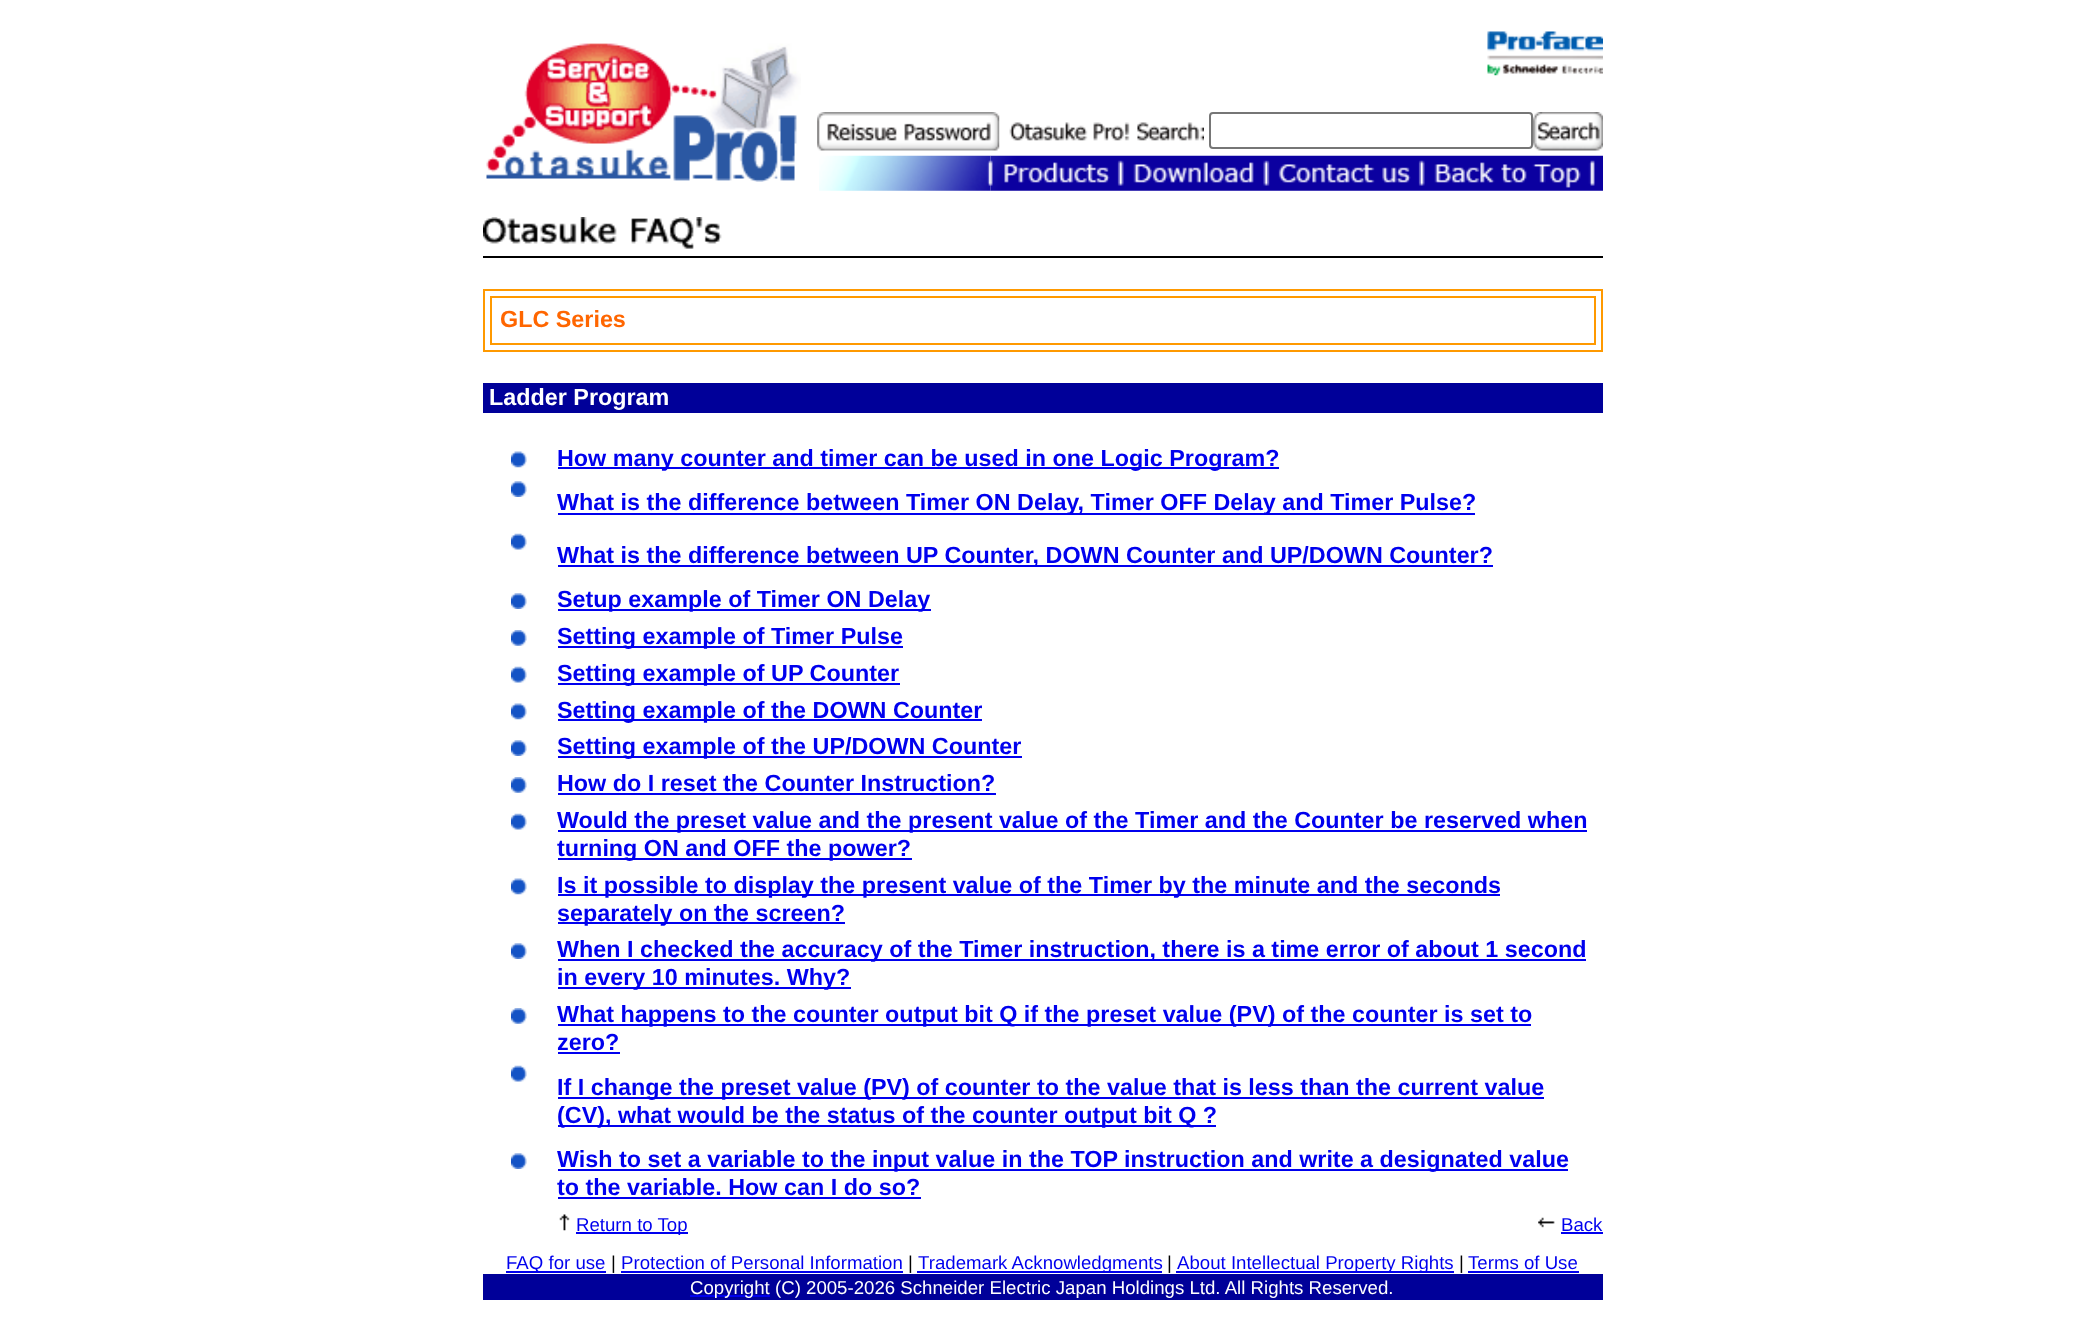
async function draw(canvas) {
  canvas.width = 2084
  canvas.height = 1340
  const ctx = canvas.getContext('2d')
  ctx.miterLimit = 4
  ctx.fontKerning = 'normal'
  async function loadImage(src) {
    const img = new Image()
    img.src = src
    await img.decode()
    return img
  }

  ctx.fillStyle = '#fff'
  ctx.fillRect(0, 0, 2084, 1340)
  ctx.drawImage(await loadImage('image0.png'), 486, 43, 315, 139)
  ctx.drawImage(await loadImage('image1.png'), 1487, 31, 116, 45)
  ctx.drawImage(await loadImage('image2.png'), 817, 112, 183, 39)
  ctx.drawImage(await loadImage('image3.png'), 1009, 122, 195, 19)
  ctx.beginPath()
  ctx.roundRect(1210, 113, 322, 35, 3)
  ctx.strokeStyle = '#767676'
  ctx.lineWidth = 2
  ctx.stroke()
  ctx.drawImage(await loadImage('image4.png'), 1533, 112, 70, 39)
  ctx.drawImage(await loadImage('image5.png'), 819, 155, 172, 36)
  ctx.drawImage(await loadImage('image6.png'), 990, 155, 130, 36)
  ctx.drawImage(await loadImage('image7.png'), 1120, 155, 147, 36)
  ctx.drawImage(await loadImage('image8.png'), 1267, 155, 154, 36)
  ctx.drawImage(await loadImage('image9.png'), 1421, 155, 182, 36)
  ctx.drawImage(await loadImage('image10.png'), 483, 217, 239, 32)
  ctx.fillStyle = '#000'
  ctx.fillRect(483, 256, 1120, 2)
  ctx.strokeStyle = '#f90'
  ctx.strokeRect(484, 290, 1118, 61)
  ctx.strokeRect(491, 297, 1104, 47)
  ctx.font = 'bold 23.35px Liberation Sans'
  ctx.fillStyle = '#f60'
  ctx.fillText('GLC Series', 500, 327)
  ctx.fillStyle = '#009'
  ctx.fillRect(483, 383, 1120, 30)
  ctx.fillStyle = '#fff'
  ctx.fillText('Ladder Program', 489, 405)
  ctx.drawImage(await loadImage('image11.png'), 511, 451, 16, 17)
  ctx.fillStyle = '#00e'
  ctx.fillRect(558, 467, 721, 2)
  ctx.fillText('How many counter and timer can be used in one Logic Program?', 557, 466)
  ctx.drawImage(await loadImage('image12.png'), 511, 481, 16, 16)
  ctx.fillRect(558, 513, 917, 2)
  ctx.fillText('What is the difference between Timer ON Delay, Timer OFF Delay and Timer Pulse?', 557, 510)
  ctx.drawImage(await loadImage('image13.png'), 511, 533, 16, 17)
  ctx.fillRect(558, 565, 935, 2)
  ctx.fillText('What is the difference between UP Counter, DOWN Counter and UP/DOWN Counter?', 557, 563)
  ctx.drawImage(await loadImage('image12.png'), 511, 593, 16, 16)
  ctx.fillRect(558, 609, 373, 2)
  ctx.fillText('Setup example of Timer ON Delay', 557, 607)
  ctx.drawImage(await loadImage('image14.png'), 511, 630, 16, 16)
  ctx.fillRect(558, 646, 345, 2)
  ctx.fillText('Setting example of Timer Pulse', 557, 644)
  ctx.drawImage(await loadImage('image13.png'), 511, 666, 16, 17)
  ctx.fillRect(558, 683, 342, 2)
  ctx.fillText('Setting example of UP Counter', 557, 681)
  ctx.drawImage(await loadImage('image11.png'), 511, 703, 16, 17)
  ctx.fillRect(558, 719, 424, 2)
  ctx.fillText('Setting example of the DOWN Counter', 557, 718)
  ctx.drawImage(await loadImage('image12.png'), 511, 740, 16, 16)
  ctx.fillRect(558, 756, 464, 2)
  ctx.fillText('Setting example of the UP/DOWN Counter', 557, 754)
  ctx.drawImage(await loadImage('image14.png'), 511, 777, 16, 16)
  ctx.fillText('How do I reset the Counter Instruction?', 557, 791)
  ctx.fillRect(558, 793, 438, 2)
  ctx.drawImage(await loadImage('image13.png'), 511, 813, 16, 17)
  ctx.fillRect(558, 830, 1029, 2)
  ctx.fillText('Would the preset value and the present value of the Timer and the Counter be reserved when', 557, 828)
  ctx.fillRect(558, 858, 354, 2)
  ctx.fillText('turning ON and OFF the power?', 557, 856)
  ctx.drawImage(await loadImage('image11.png'), 511, 878, 16, 17)
  ctx.fillRect(558, 894, 942, 2)
  ctx.fillText('Is it possible to display the present value of the Timer by the minute and the seconds', 557, 893)
  ctx.fillRect(558, 922, 287, 2)
  ctx.fillText('separately on the screen?', 557, 921)
  ctx.drawImage(await loadImage('image12.png'), 511, 943, 16, 16)
  ctx.fillRect(558, 959, 1028, 2)
  ctx.fillText('When I checked the accuracy of the Timer instruction, there is a time error of about 1 second', 557, 957)
  ctx.fillRect(558, 987, 293, 2)
  ctx.fillText('in every 10 minutes. Why?', 557, 985)
  ctx.drawImage(await loadImage('image14.png'), 511, 1008, 16, 16)
  ctx.fillRect(558, 1024, 973, 2)
  ctx.fillText('What happens to the counter output bit Q if the preset value (PV) of the counter is set to', 557, 1022)
  ctx.fillText('zero?', 557, 1050)
  ctx.fillRect(558, 1052, 62, 2)
  ctx.drawImage(await loadImage('image13.png'), 511, 1065, 16, 17)
  ctx.fillRect(558, 1097, 986, 2)
  ctx.fillText('If I change the preset value (PV) of counter to the value that is less than the current value', 557, 1095)
  ctx.fillRect(558, 1125, 658, 2)
  ctx.fillText('(CV), what would be the status of the counter output bit Q ?', 557, 1123)
  ctx.drawImage(await loadImage('image12.png'), 511, 1153, 16, 16)
  ctx.fillRect(558, 1169, 1010, 2)
  ctx.fillText('Wish to set a variable to the input value in the TOP instruction and write a designated value', 557, 1167)
  ctx.fillText('to the variable. How can I do so?', 557, 1195)
  ctx.fillRect(558, 1197, 363, 2)
  ctx.drawImage(await loadImage('image15.png'), 559, 1214, 11, 17)
  ctx.fillRect(576, 1232, 112, 2)
  ctx.font = '18.65px Liberation Sans'
  ctx.fillText('Return to Top', 576, 1231)
  ctx.drawImage(await loadImage('image16.png'), 1538, 1217, 17, 11)
  ctx.fillText('Back', 1561, 1231)
  ctx.fillRect(1561, 1232, 42, 2)
  ctx.fillRect(506, 1271, 100, 2)
  ctx.fillText('FAQ for use', 506, 1269)
  ctx.fillStyle = '#000'
  ctx.fillText('|', 611, 1269)
  ctx.fillStyle = '#00e'
  ctx.fillText('Protection of Personal Information', 621, 1269)
  ctx.fillRect(621, 1271, 282, 2)
  ctx.fillStyle = '#000'
  ctx.fillText('|', 908, 1269)
  ctx.fillStyle = '#00e'
  ctx.fillRect(917, 1271, 245, 2)
  ctx.fillText('Trademark Acknowledgments', 918, 1269)
  ctx.fillStyle = '#000'
  ctx.fillText('|', 1167, 1269)
  ctx.fillStyle = '#00e'
  ctx.fillRect(1176, 1271, 278, 2)
  ctx.fillText('About Intellectual Property Rights', 1177, 1269)
  ctx.fillStyle = '#000'
  ctx.fillText('|', 1459, 1269)
  ctx.fillStyle = '#00e'
  ctx.fillText('Terms of Use', 1468, 1269)
  ctx.fillRect(1468, 1271, 111, 2)
  ctx.fillStyle = '#009'
  ctx.fillRect(483, 1274, 1120, 26)
  ctx.fillStyle = '#00e'
  ctx.fillRect(690, 1295, 80, 2)
  ctx.fillStyle = '#fff'
  ctx.fillText('Copyright (C) 2005-2026 Schneider Electric Japan Holdings Ltd. All Rights Reserved.', 690, 1294)
}

draw(document.querySelector('canvas'))
